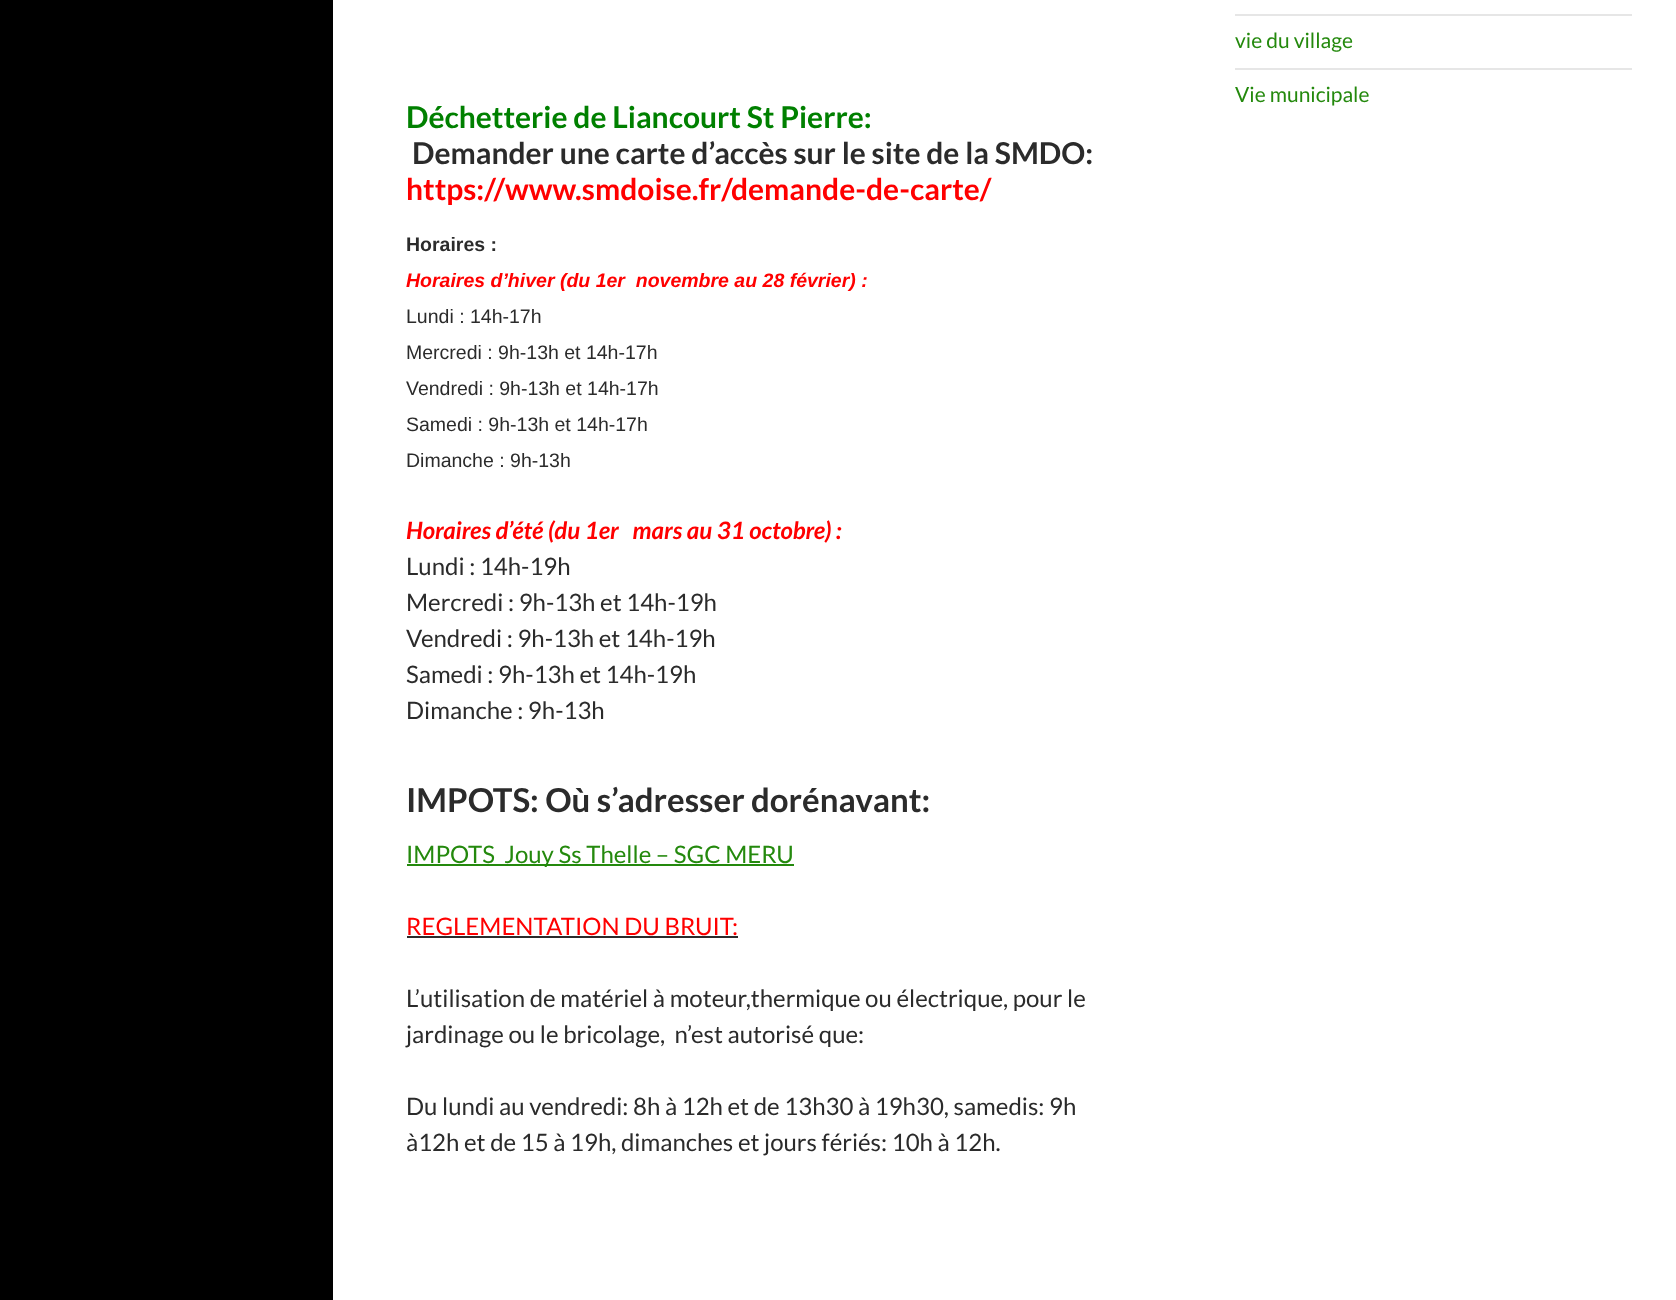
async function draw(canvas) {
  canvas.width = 1676
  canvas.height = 1300
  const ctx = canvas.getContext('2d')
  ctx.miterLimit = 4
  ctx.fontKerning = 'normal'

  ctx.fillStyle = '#fff'
  ctx.fillRect(0, 0, 1676, 1300)
  ctx.fillStyle = '#000'
  ctx.fillRect(0, 0, 333, 1300)
  ctx.fillStyle = '#e6e6e6'
  ctx.fillRect(1235, 14, 397, 2)
  ctx.font = '21px Lato'
  ctx.fillStyle = '#24890d'
  ctx.fillText('vie du village', 1235, 48)
  ctx.fillStyle = '#e6e6e6'
  ctx.fillRect(1235, 68, 397, 2)
  ctx.fillStyle = '#24890d'
  ctx.fillText('Vie municipale', 1235, 102)
  ctx.font = 'bold 30px Lato'
  ctx.fillStyle = '#008000'
  ctx.fillText('Déchetterie de Liancourt St Pierre:', 406, 128)
  ctx.fillStyle = '#2b2b2b'
  ctx.fillText('Demander une carte d’accès sur le site de la SMDO:', 412, 164)
  ctx.fillStyle = '#f00'
  ctx.fillText('https://www.smdoise.fr/demande-de-carte/', 406, 200)
  ctx.font = 'bold 19.5px Liberation Sans'
  ctx.fillStyle = '#2b2b2b'
  ctx.fillText('Horaires :', 406, 251)
  ctx.font = 'italic bold 19.5px Liberation Sans'
  ctx.fillStyle = '#f00'
  ctx.fillText('Horaires d’hiver (du 1er  novembre au 28 février) :', 406, 287)
  ctx.font = '19.5px Liberation Sans'
  ctx.fillStyle = '#2b2b2b'
  ctx.fillText('Lundi : 14h-17h', 406, 323)
  ctx.fillText('Mercredi : 9h-13h et 14h-17h', 406, 359)
  ctx.fillText('Vendredi : 9h-13h et 14h-17h', 406, 395)
  ctx.fillText('Samedi : 9h-13h et 14h-17h', 406, 431)
  ctx.fillText('Dimanche : 9h-13h', 406, 467)
  ctx.font = 'italic bold 24px Lato'
  ctx.fillStyle = '#f00'
  ctx.fillText('Horaires d’été (du 1er   mars au 31 octobre) :', 406, 539)
  ctx.font = '24px Lato'
  ctx.fillStyle = '#2b2b2b'
  ctx.fillText('Lundi : 14h-19h', 406, 575)
  ctx.fillText('Mercredi : 9h-13h et 14h-19h', 406, 611)
  ctx.fillText('Vendredi : 9h-13h et 14h-19h', 406, 647)
  ctx.fillText('Samedi : 9h-13h et 14h-19h', 406, 683)
  ctx.fillText('Dimanche : 9h-13h', 406, 719)
  ctx.font = 'bold 33px Lato'
  ctx.fillText('IMPOTS: Où s’adresser dorénavant:', 406, 812)
  ctx.fillStyle = '#24890d'
  ctx.fillRect(407, 864, 387, 2)
  ctx.font = '24px Lato'
  ctx.fillText('IMPOTS  Jouy Ss Thelle – SGC MERU', 406, 863)
  ctx.fillStyle = '#f00'
  ctx.fillText('REGLEMENTATION DU BRUIT:', 406, 935)
  ctx.fillStyle = '#2b2b2b'
  ctx.fillRect(407, 936, 331, 2)
  ctx.fillText('L’utilisation de matériel à moteur,thermique ou électrique, pour le', 406, 1007)
  ctx.fillText('jardinage ou le bricolage,  n’est autorisé que:', 406, 1043)
  ctx.fillText('Du lundi au vendredi: 8h à 12h et de 13h30 à 19h30, samedis: 9h', 406, 1115)
  ctx.fillText('à12h et de 15 à 19h, dimanches et jours fériés: 10h à 12h.', 406, 1151)
}

draw(document.querySelector('canvas'))
